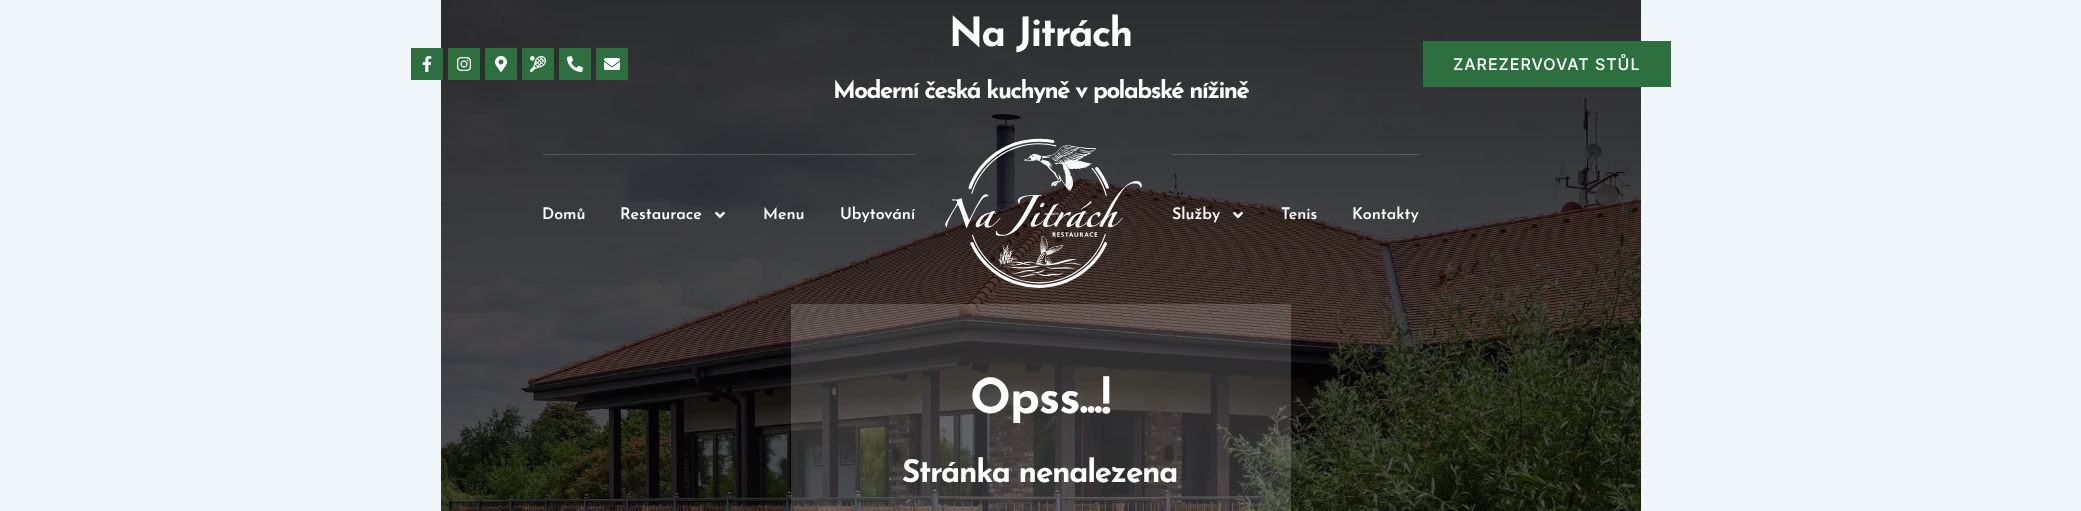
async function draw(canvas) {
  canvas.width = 2081
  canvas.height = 511
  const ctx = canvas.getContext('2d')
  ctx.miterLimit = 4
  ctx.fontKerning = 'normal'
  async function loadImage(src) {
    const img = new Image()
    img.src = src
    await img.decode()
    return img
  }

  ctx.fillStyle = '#f0f5fa'
  ctx.fillRect(0, 0, 2081, 511)
  ctx.drawImage(await loadImage('image9.png'), 441, 0, 1200, 511)
  ctx.fillStyle = '#2d6f3f'
  ctx.fillRect(411, 48, 32, 32)
  ctx.drawImage(await loadImage('image0.png'), 422, 56, 10, 16)
  ctx.fillRect(448, 48, 32, 32)
  ctx.drawImage(await loadImage('image1.png'), 457, 57, 14, 14)
  ctx.fillRect(485, 48, 32, 32)
  ctx.drawImage(await loadImage('image2.png'), 495, 56, 12, 16)
  ctx.fillRect(522, 48, 32, 32)
  ctx.drawImage(await loadImage('image3.png'), 530, 56, 16, 16)
  ctx.fillRect(559, 48, 32, 32)
  ctx.drawImage(await loadImage('image4.png'), 567, 56, 16, 16)
  ctx.fillRect(596, 48, 32, 32)
  ctx.drawImage(await loadImage('image5.png'), 604, 58, 16, 12)
  ctx.letterSpacing = '-1.5px'
  ctx.font = 'bold 40px Josefin Sans'
  ctx.fillStyle = '#fff'
  ctx.fillText('Na Jitrách', 949, 46)
  ctx.font = 'bold 24px Josefin Sans'
  ctx.fillText('Moderní česká kuchyně v polabské nížině', 833, 98)
  ctx.fillStyle = '#2d6f3f'
  ctx.fillRect(1423, 41, 248, 46)
  ctx.letterSpacing = '1px'
  ctx.font = '500 16px Inter'
  ctx.fillStyle = '#fff'
  ctx.fillText('ZAREZERVOVAT STŮL', 1453, 70)
  ctx.fillStyle = '#ffffff2b'
  ctx.fillRect(542, 154, 373, 1)
  ctx.letterSpacing = '0px'
  ctx.font = '600 16px Josefin Sans'
  ctx.fillStyle = '#fff'
  ctx.fillText('Domů', 542, 219)
  ctx.fillText('Restaurace', 620, 219)
  ctx.drawImage(await loadImage('image6.png'), 715, 211, 10, 8)
  ctx.fillText('Menu', 763, 219)
  ctx.fillText('Ubytování', 840, 219)
  ctx.drawImage(await loadImage('image7.png'), 945, 138, 197, 150)
  ctx.fillStyle = '#5a5b5d'
  ctx.fillRect(1172, 154, 247, 1)
  ctx.fillStyle = '#fff'
  ctx.fillText('Služby', 1172, 219)
  ctx.drawImage(await loadImage('image8.png'), 1233, 211, 10, 8)
  ctx.fillText('Tenis', 1281, 219)
  ctx.fillText('Kontakty', 1352, 219)
  ctx.fillStyle = '#ffffff2b'
  ctx.fillRect(791, 304, 500, 207)
  ctx.letterSpacing = '-1px'
  ctx.font = 'bold 48px Josefin Sans'
  ctx.fillStyle = '#fff'
  ctx.fillText('Opss...!', 970, 413)
  ctx.letterSpacing = '-1.25px'
  ctx.font = 'bold 31.25px Josefin Sans'
  ctx.fillText('Stránka nenalezena', 902, 482)
}

draw(document.querySelector('canvas'))
